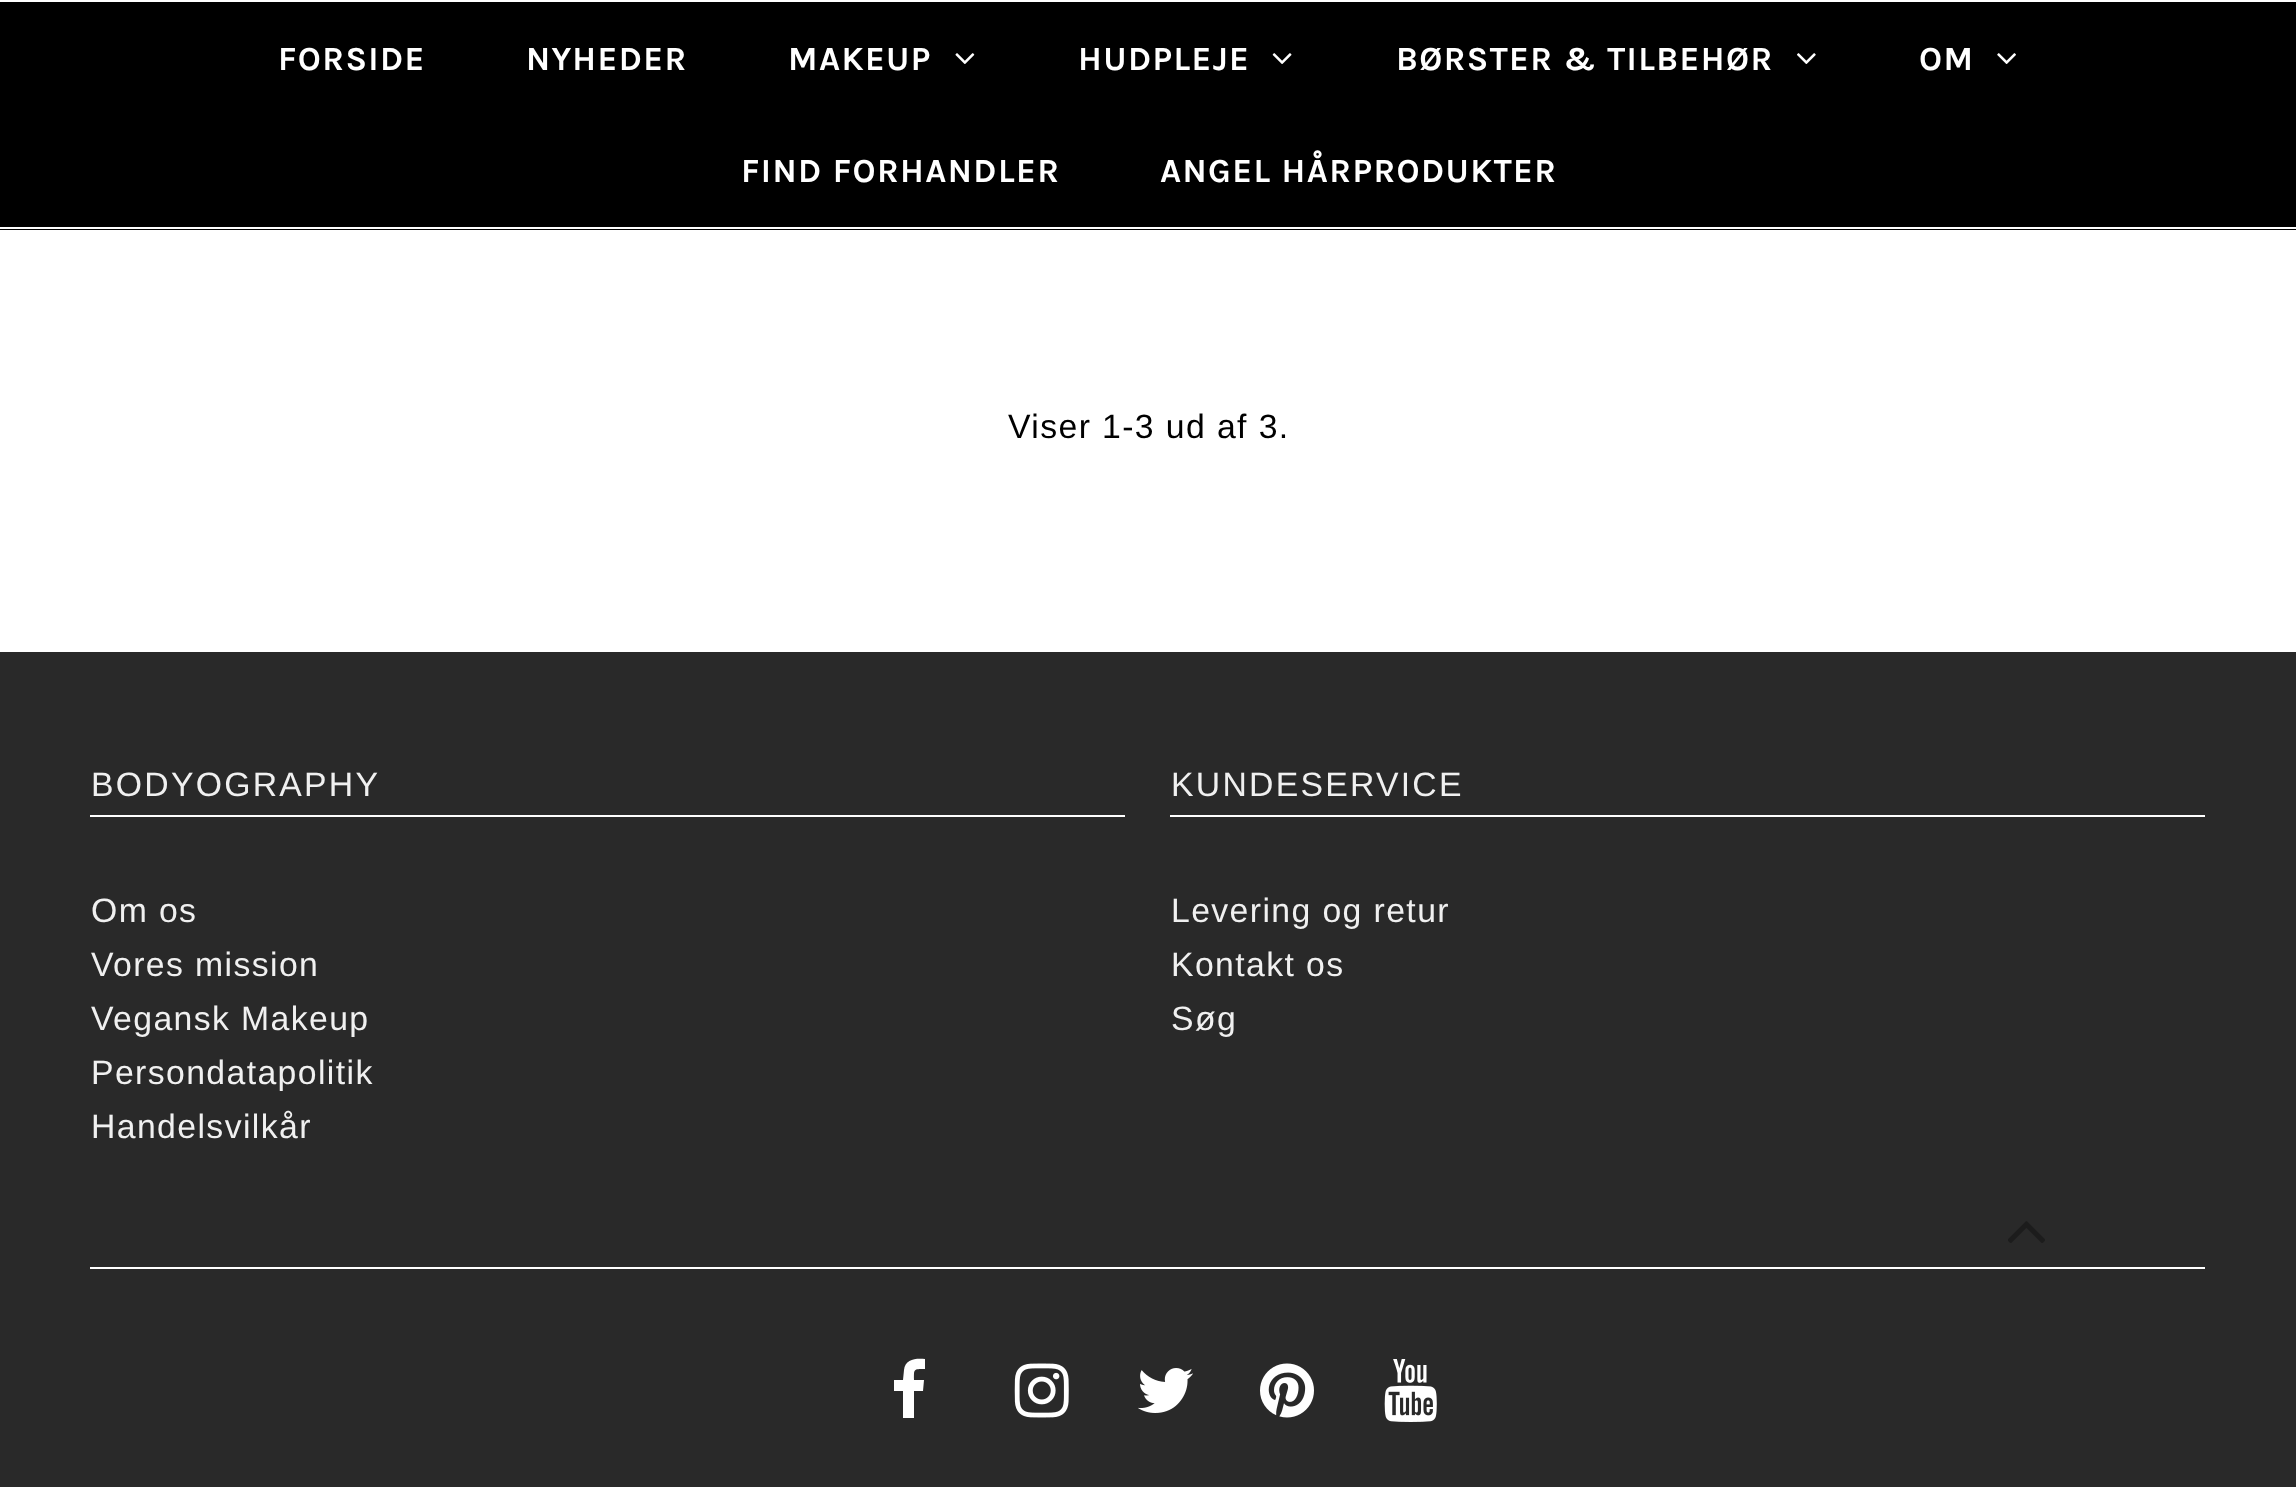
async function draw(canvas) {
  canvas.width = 2296
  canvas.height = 1487
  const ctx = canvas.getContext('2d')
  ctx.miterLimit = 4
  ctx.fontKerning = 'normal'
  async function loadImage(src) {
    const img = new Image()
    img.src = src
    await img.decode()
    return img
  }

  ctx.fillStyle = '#fff'
  ctx.fillRect(0, 0, 2296, 1487)
  ctx.fillStyle = '#000'
  ctx.fillRect(0, 2, 2296, 228)
  ctx.fillStyle = '#fff'
  ctx.fillRect(0, 227, 2296, 2)
  ctx.letterSpacing = '1.4px'
  ctx.font = 'bold 33.75px Karla'
  ctx.fillText('FORSIDE', 278, 70)
  ctx.fillText('NYHEDER', 526, 70)
  ctx.fillText('MAKEUP', 788, 70)
  ctx.drawImage(await loadImage('image0.png'), 955, 53, 20, 11)
  ctx.fillText('HUDPLEJE', 1078, 70)
  ctx.drawImage(await loadImage('image1.png'), 1272, 53, 20, 11)
  ctx.fillText('BØRSTER & TILBEHØR', 1396, 70)
  ctx.drawImage(await loadImage('image2.png'), 1797, 53, 19, 11)
  ctx.fillText('OM', 1919, 70)
  ctx.drawImage(await loadImage('image3.png'), 1997, 53, 19, 11)
  ctx.fillText('FIND FORHANDLER', 741, 182)
  ctx.fillText('ANGEL HÅRPRODUKTER', 1160, 182)
  ctx.font = '33.75px Liberation Sans'
  ctx.fillStyle = '#000'
  ctx.fillText('Viser 1-3 ud af 3.', 1008, 438)
  ctx.fillStyle = '#292929'
  ctx.fillRect(0, 652, 2296, 835)
  ctx.fillStyle = '#fff'
  ctx.fillRect(90, 815, 1035, 2)
  ctx.letterSpacing = '2.25px'
  ctx.fillStyle = '#f0f0f0'
  ctx.fillText('BODYOGRAPHY', 91, 796)
  ctx.letterSpacing = '1.4px'
  ctx.fillText('Om os', 91, 922)
  ctx.fillText('Vores mission', 91, 976)
  ctx.fillText('Vegansk Makeup', 91, 1030)
  ctx.fillText('Persondatapolitik', 91, 1084)
  ctx.fillText('Handelsvilkår', 91, 1138)
  ctx.fillStyle = '#fff'
  ctx.fillRect(1170, 815, 1035, 2)
  ctx.letterSpacing = '2.25px'
  ctx.fillStyle = '#f0f0f0'
  ctx.fillText('KUNDESERVICE', 1171, 796)
  ctx.letterSpacing = '1.4px'
  ctx.fillText('Levering og retur', 1171, 922)
  ctx.fillText('Kontakt os', 1171, 976)
  ctx.fillText('Søg', 1171, 1030)
  ctx.fillStyle = '#fff'
  ctx.fillRect(90, 1267, 2115, 2)
  ctx.beginPath()
  ctx.moveTo(925, 1359)
  ctx.lineTo(925, 1369)
  ctx.bezierCurveTo(913, 1369, 914, 1369, 914, 1380)
  ctx.lineTo(924, 1380)
  ctx.lineTo(923, 1391)
  ctx.lineTo(914, 1391)
  ctx.lineTo(914, 1418)
  ctx.lineTo(903, 1418)
  ctx.lineTo(903, 1391)
  ctx.lineTo(894, 1391)
  ctx.lineTo(894, 1380)
  ctx.lineTo(903, 1380)
  ctx.lineTo(904, 1370)
  ctx.bezierCurveTo(905, 1359, 916, 1358, 925, 1359)
  ctx.closePath()
  ctx.fill()
  ctx.drawImage(await loadImage('image4.png'), 1014, 1363, 55, 55)
  ctx.drawImage(await loadImage('image5.png'), 1138, 1368, 55, 45)
  ctx.drawImage(await loadImage('image6.png'), 1260, 1363, 54, 55)
  ctx.drawImage(await loadImage('image7.png'), 1384, 1359, 53, 63)
  ctx.drawImage(await loadImage('image8.png'), 2008, 1221, 37, 22)
}

draw(document.querySelector('canvas'))
